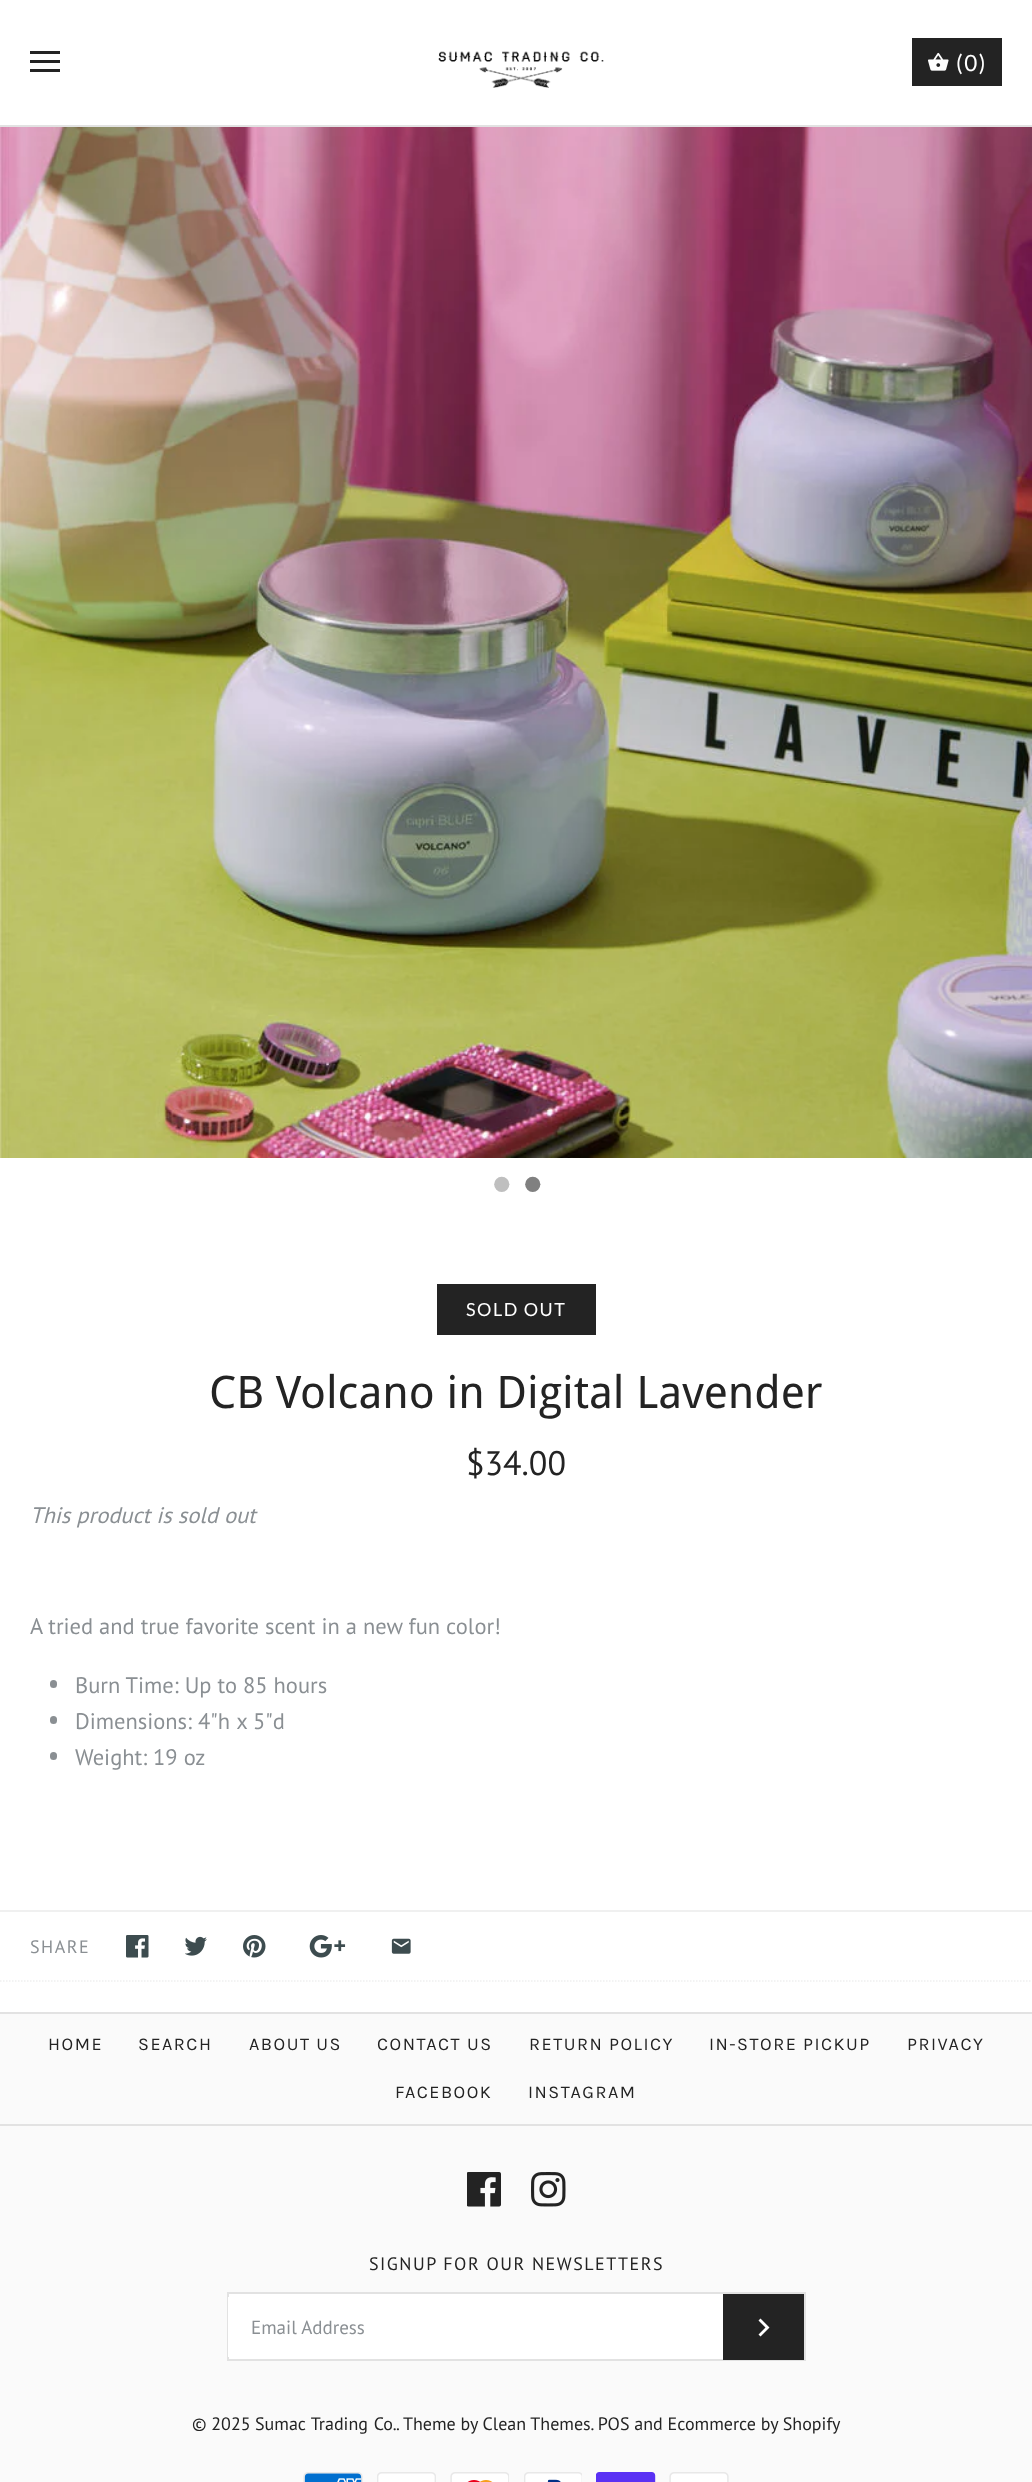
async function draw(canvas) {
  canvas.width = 1032
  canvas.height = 2482
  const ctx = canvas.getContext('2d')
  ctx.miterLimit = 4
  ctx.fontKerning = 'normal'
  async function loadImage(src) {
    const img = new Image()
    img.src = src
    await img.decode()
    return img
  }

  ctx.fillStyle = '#fff'
  ctx.fillRect(0, 0, 1032, 2482)
  ctx.fillStyle = '#e2e2e2'
  ctx.fillRect(0, 125, 1032, 2)
  ctx.fillStyle = '#232323'
  ctx.fillRect(30, 51, 30, 3)
  ctx.fillRect(30, 60, 30, 3)
  ctx.fillRect(30, 69, 30, 3)
  ctx.drawImage(await loadImage('image0.png'), 438, 51, 166, 37)
  ctx.fillRect(912, 38, 90, 48)
  ctx.drawImage(await loadImage('image1.png'), 928, 52, 21, 19)
  ctx.letterSpacing = '1.5px'
  ctx.font = '22.5px Lato'
  ctx.fillStyle = '#fff'
  ctx.fillText('(0)', 956, 71)
  ctx.drawImage(await loadImage('image2.png'), 0, 127, 1032, 1031)
  ctx.font = '56px Liberation Mono'
  ctx.fillStyle = '#bfbfbf'
  ctx.fillText('•', 485, 1203)
  ctx.fillStyle = '#808080'
  ctx.fillText('•', 516, 1203)
  ctx.fillStyle = '#232323'
  ctx.fillRect(437, 1284, 159, 51)
  ctx.font = '18px Lato'
  ctx.fillStyle = '#fff'
  ctx.fillText('SOLD OUT', 466, 1316)
  ctx.letterSpacing = '0px'
  ctx.font = '45px Droid Sans'
  ctx.fillStyle = '#232323'
  ctx.fillText('CB Volcano in Digital Lavender', 209, 1408)
  ctx.font = '34px PT Sans'
  ctx.fillText('$34.00', 466, 1475)
  ctx.font = 'italic 22.5px PT Sans'
  ctx.fillStyle = '#8a8f93'
  ctx.fillText('This product is sold out', 30, 1523)
  ctx.font = '22.5px PT Sans'
  ctx.fillText('A tried and true favorite scent in a new fun color!', 30, 1634)
  ctx.beginPath()
  ctx.roundRect(50, 1680, 7, 8, 3.5)
  ctx.fill()
  ctx.fillText('Burn Time: Up to 85 hours', 75, 1693)
  ctx.beginPath()
  ctx.roundRect(50, 1716, 7, 8, 3.5)
  ctx.fill()
  ctx.fillText('Dimensions: 4"h x 5"d', 75, 1729)
  ctx.beginPath()
  ctx.roundRect(50, 1752, 7, 8, 3.5)
  ctx.fill()
  ctx.fillText('Weight: 19 oz', 75, 1765)
  ctx.fillStyle = '#f0f0f0'
  ctx.fillRect(0, 1910, 1032, 2)
  ctx.beginPath()
  ctx.moveTo(0, 1981)
  ctx.lineTo(1032, 1981)
  ctx.strokeStyle = '#f0f0f0'
  ctx.lineWidth = 1.5
  ctx.setLineDash([1.5, 1.5])
  ctx.stroke()
  ctx.letterSpacing = '1.5px'
  ctx.font = '18px PT Sans'
  ctx.fillStyle = '#8a8f93'
  ctx.fillText('SHARE', 30, 1953)
  ctx.drawImage(await loadImage('image3.png'), 126, 1935, 23, 23)
  ctx.drawImage(await loadImage('image4.png'), 185, 1936, 22, 20)
  ctx.drawImage(await loadImage('image5.png'), 243, 1935, 23, 23)
  ctx.drawImage(await loadImage('image6.png'), 309, 1935, 37, 23)
  ctx.drawImage(await loadImage('image7.png'), 391, 1938, 20, 16)
  ctx.fillStyle = '#fafafa'
  ctx.fillRect(0, 2014, 1032, 468)
  ctx.fillStyle = '#e2e2e2'
  ctx.fillRect(0, 2012, 1032, 2)
  ctx.fillRect(0, 2124, 1032, 2)
  ctx.font = '18px Karla'
  ctx.fillStyle = '#232323'
  ctx.fillText('HOME', 48, 2050)
  ctx.fillText('SEARCH', 138, 2050)
  ctx.fillText('ABOUT US', 249, 2050)
  ctx.fillText('CONTACT US', 377, 2050)
  ctx.fillText('RETURN POLICY', 529, 2050)
  ctx.fillText('IN-STORE PICKUP', 709, 2050)
  ctx.fillText('PRIVACY', 907, 2050)
  ctx.fillText('FACEBOOK', 395, 2098)
  ctx.fillText('INSTAGRAM', 528, 2098)
  ctx.drawImage(await loadImage('image8.png'), 467, 2172, 34, 35)
  ctx.drawImage(await loadImage('image9.png'), 531, 2172, 35, 35)
  ctx.font = '18px PT Sans'
  ctx.fillText('SIGNUP FOR OUR NEWSLETTERS', 369, 2270)
  ctx.fillStyle = '#fff'
  ctx.fillRect(229, 2294, 494, 65)
  ctx.strokeStyle = '#e2e2e2'
  ctx.lineWidth = 2
  ctx.setLineDash([])
  ctx.strokeRect(228, 2293, 577, 67)
  ctx.fillRect(228, 2297, 1, 60)
  ctx.letterSpacing = '0px'
  ctx.font = '19px PT Sans'
  ctx.fillStyle = '#8a8f93'
  ctx.fillText('Email Address', 251, 2334)
  ctx.fillStyle = '#232323'
  ctx.fillRect(723, 2294, 81, 66)
  ctx.fillStyle = '#fff'
  ctx.beginPath()
  ctx.moveTo(758.5, 2334.5)
  ctx.lineTo(765.5, 2327.5)
  ctx.lineTo(758.5, 2320.5)
  ctx.lineTo(760.5, 2318.5)
  ctx.lineTo(769.5, 2327.5)
  ctx.lineTo(760.5, 2336.5)
  ctx.closePath()
  ctx.fill()
  ctx.font = '18px PT Sans'
  ctx.fillStyle = '#232323'
  ctx.fillText('© 2025', 192, 2430)
  ctx.wordSpacing = '1px'
  ctx.fillText('Sumac Trading Co.', 255, 2430)
  ctx.wordSpacing = '0px'
  ctx.fillText('.', 396, 2430)
  ctx.fillText('Theme by Clean Themes. POS and Ecommerce by Shopify', 403, 2430)
  ctx.drawImage(await loadImage('image10.png'), 303, 2472, 60, 10)
  ctx.drawImage(await loadImage('image11.png'), 377, 2472, 59, 10)
  ctx.drawImage(await loadImage('image12.png'), 450, 2472, 59, 10)
  ctx.drawImage(await loadImage('image13.png'), 524, 2472, 58, 10)
  ctx.drawImage(await loadImage('image14.png'), 596, 2472, 60, 10)
  ctx.drawImage(await loadImage('image15.png'), 669, 2472, 60, 10)
}

draw(document.querySelector('canvas'))
